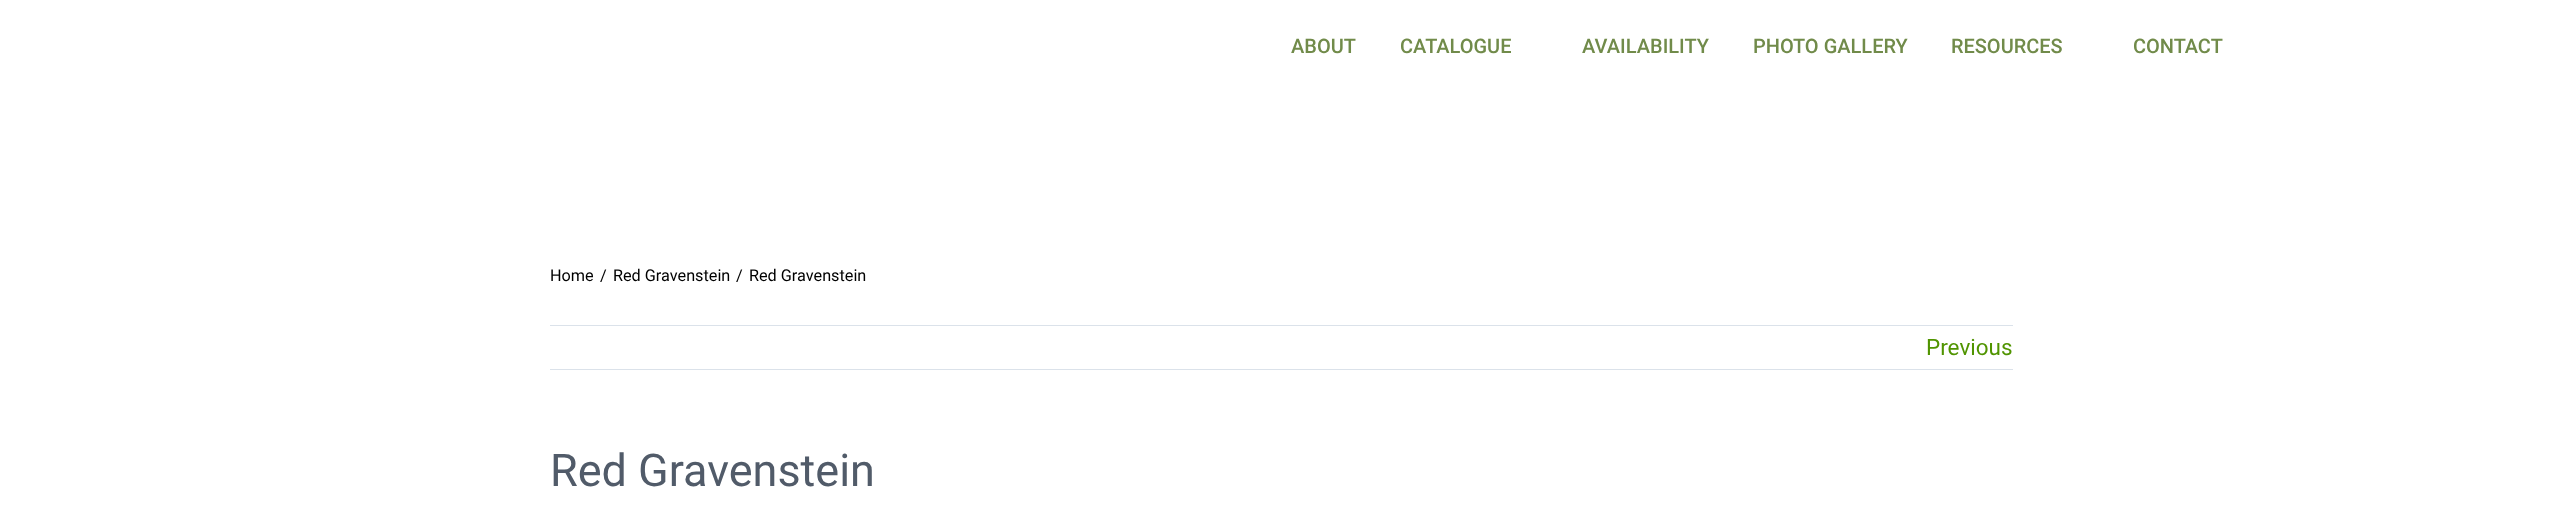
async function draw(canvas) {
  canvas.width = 2562
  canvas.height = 517
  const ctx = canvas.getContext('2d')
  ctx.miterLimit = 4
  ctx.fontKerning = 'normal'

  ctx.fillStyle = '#fff'
  ctx.fillRect(0, 0, 2562, 517)
  ctx.font = '500 20px Roboto'
  ctx.fillStyle = '#718b4a'
  ctx.fillText('ABOUT', 1291, 53)
  ctx.fillText('CATALOGUE', 1400, 53)
  ctx.fillText('AVAILABILITY', 1582, 53)
  ctx.fillText('PHOTO GALLERY', 1753, 53)
  ctx.fillText('RESOURCES', 1951, 53)
  ctx.fillText('CONTACT', 2133, 53)
  ctx.font = '16.25px Roboto'
  ctx.fillStyle = '#000'
  ctx.fillText('Home', 550, 281)
  ctx.fillText('/', 600, 281)
  ctx.fillText('Red Gravenstein', 613, 281)
  ctx.fillText('/', 736, 281)
  ctx.fillText('Red Gravenstein', 749, 281)
  ctx.fillStyle = '#dbe2ea'
  ctx.fillRect(550, 325, 1463, 1)
  ctx.fillRect(550, 369, 1463, 1)
  ctx.font = '22.5px Roboto'
  ctx.fillStyle = '#509400'
  ctx.fillText('Previous', 1926, 355)
  ctx.font = '45px Roboto'
  ctx.fillStyle = '#515b69'
  ctx.fillText('Red Gravenstein', 550, 486)
}

draw(document.querySelector('canvas'))
